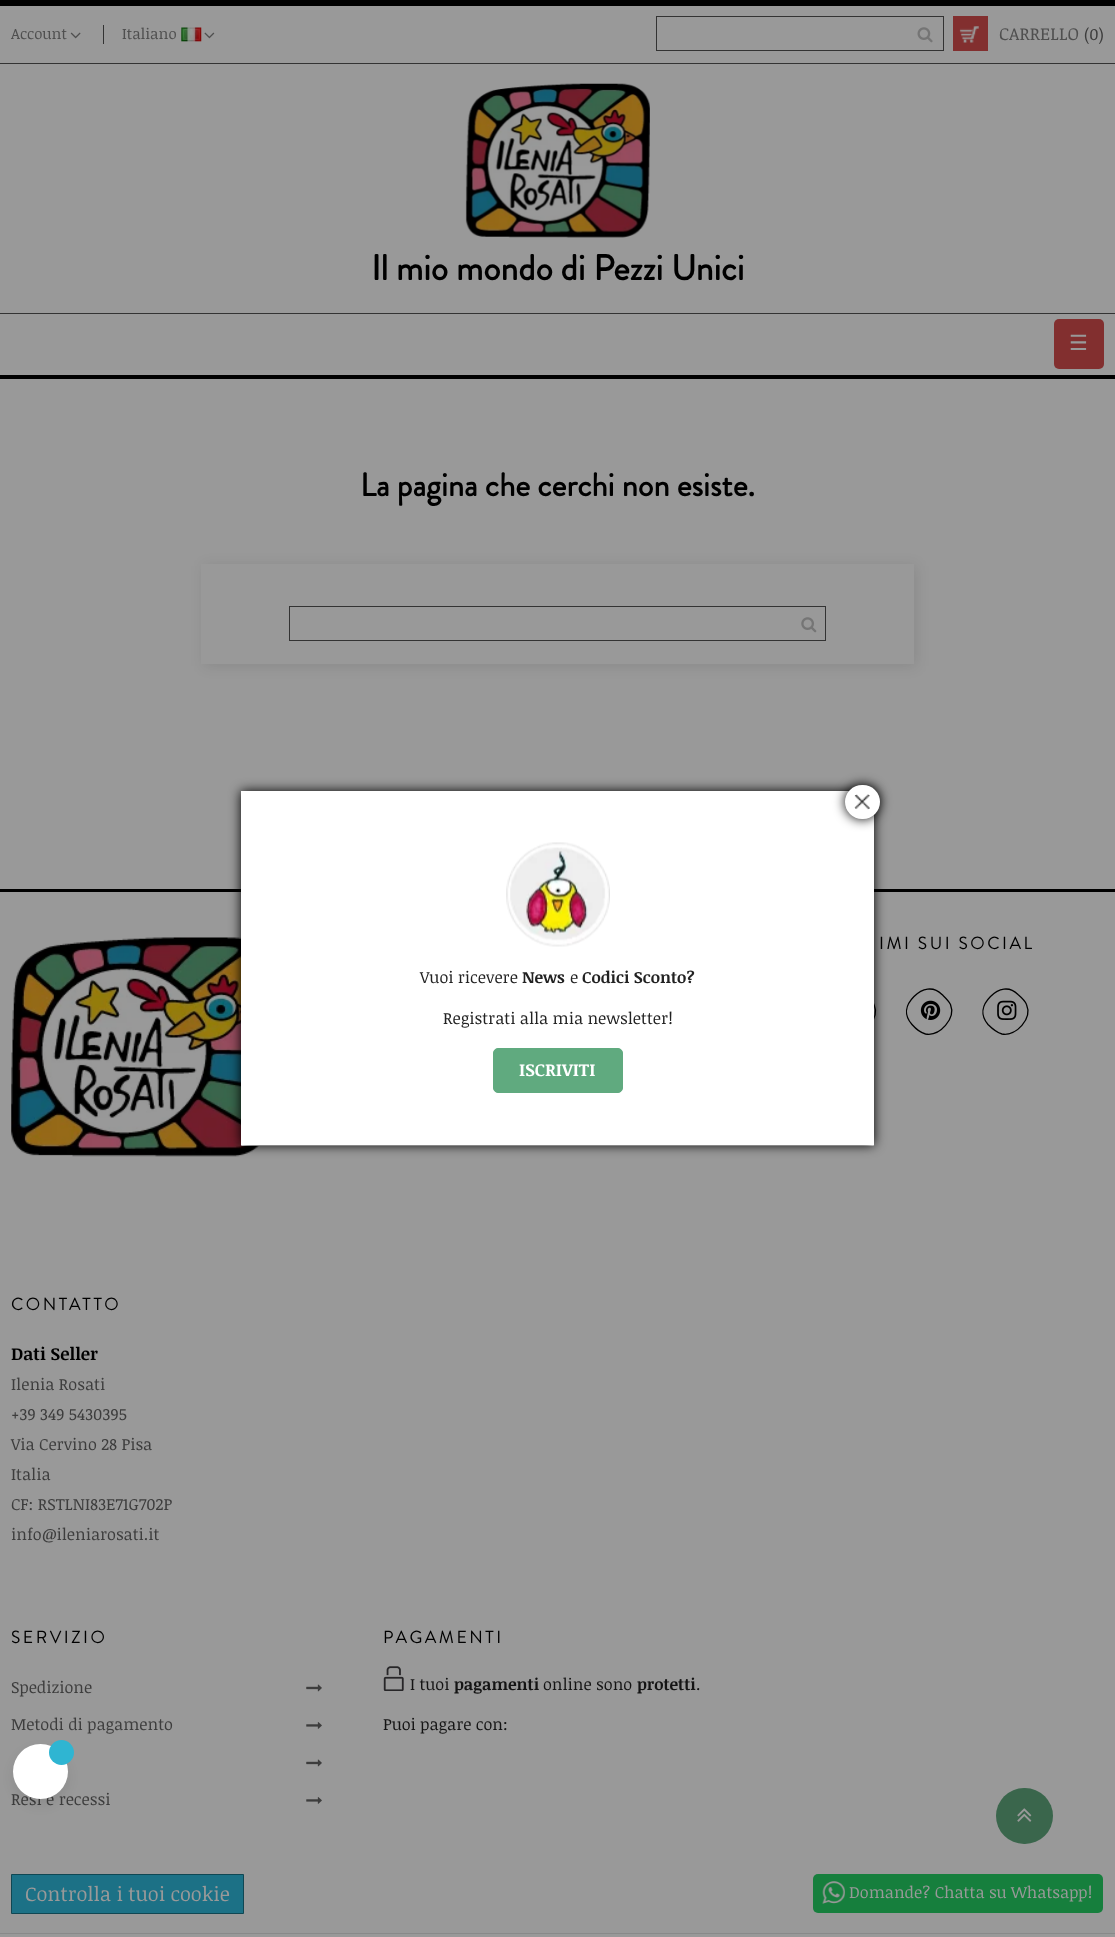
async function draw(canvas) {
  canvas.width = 1115
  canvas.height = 1937
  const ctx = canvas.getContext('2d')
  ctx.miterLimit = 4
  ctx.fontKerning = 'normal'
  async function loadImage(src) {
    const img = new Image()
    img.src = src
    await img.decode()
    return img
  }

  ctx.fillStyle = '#999'
  ctx.fillRect(0, 0, 1115, 1937)
  ctx.fillStyle = '#000'
  ctx.fillRect(0, 0, 1115, 6)
  ctx.fillStyle = '#333'
  ctx.fillRect(0, 63, 1115, 1)
  ctx.font = '15px Noticia Text'
  ctx.fillStyle = '#4f4f4f'
  ctx.fillText('Account', 11, 39)
  ctx.drawImage(await loadImage('image0.png'), 70, 32, 11, 7)
  ctx.fillStyle = '#333'
  ctx.fillRect(103, 25, 1, 19)
  ctx.fillStyle = '#4f4f4f'
  ctx.fillText('Italiano', 122, 39)
  ctx.drawImage(await loadImage('image1.png'), 181, 27, 21, 15)
  ctx.drawImage(await loadImage('image2.png'), 204, 32, 11, 7)
  ctx.strokeStyle = '#333'
  ctx.strokeRect(656.5, 16.5, 287, 34)
  ctx.drawImage(await loadImage('image3.png'), 917, 27, 16, 16)
  ctx.fillStyle = '#822f2f'
  ctx.fillRect(953, 16, 35, 35)
  ctx.drawImage(await loadImage('image4.png'), 959, 26, 20, 17)
  ctx.font = '17.5px Noticia Text'
  ctx.fillStyle = '#4f4f4f'
  ctx.fillText('CARRELLO', 999, 40)
  ctx.font = '16.25px Noticia Text'
  ctx.fillStyle = '#3d3d3d'
  ctx.fillText('(0)', 1084, 40)
  ctx.fillStyle = '#000'
  ctx.fillRect(0, 375, 1115, 4)
  ctx.drawImage(await loadImage('image5.png'), 465, 83, 185, 155)
  ctx.font = 'bold 35.75px Brandon Grotesque'
  ctx.fillText('Il mio mondo di Pezzi Unici', 371, 280)
  ctx.fillStyle = '#333'
  ctx.fillRect(0, 313, 1115, 1)
  ctx.fillStyle = '#822f2f'
  ctx.beginPath()
  ctx.roundRect(1054, 319, 50, 50, 5)
  ctx.fill()
  ctx.font = '21px DejaVu Sans'
  ctx.fillStyle = '#999'
  ctx.fillText('☰', 1069, 350)
  ctx.font = 'bold 32.5px Brandon Grotesque'
  ctx.fillStyle = '#000'
  ctx.fillText('La pagina che cerchi non esiste.', 360, 496)
  ctx.fillStyle = '#0000001a'
  ctx.filter = 'blur(7px)'
  ctx.beginPath()
  ctx.rect(204, 566, 712, 100)
  ctx.fill()
  ctx.filter = 'none'
  ctx.fillStyle = '#999'
  ctx.fillRect(201, 564, 713, 100)
  ctx.strokeRect(289.5, 606.5, 536, 34)
  ctx.drawImage(await loadImage('image6.png'), 801, 617, 16, 16)
  ctx.fillStyle = '#000'
  ctx.fillRect(0, 889, 1115, 3)
  ctx.drawImage(await loadImage('image7.png'), 11, 937, 248, 220)
  ctx.letterSpacing = '2.5px'
  ctx.font = '17.5px Brandon Grotesque'
  ctx.fillText('IMI SUI SOCIAL', 879, 949)
  ctx.beginPath()
  ctx.moveTo(865.5, 994.5)
  ctx.bezierCurveTo(869, 997.5, 872.5, 1000.5, 874, 1004.5)
  ctx.bezierCurveTo(880, 1018.5, 864, 1036.5, 849.5, 1034)
  ctx.bezierCurveTo(844, 1032.5, 839.5, 1028.5, 835.5, 1024.5)
  ctx.bezierCurveTo(827.5, 1015, 829.5, 1005, 838, 996.5)
  ctx.bezierCurveTo(846, 988.5, 856.5, 985.5, 865.5, 994.5)
  ctx.closePath()
  ctx.strokeStyle = '#000'
  ctx.lineWidth = 1.3
  ctx.stroke()
  ctx.beginPath()
  ctx.moveTo(942, 994.5)
  ctx.bezierCurveTo(945, 997.5, 948.5, 1000.5, 950.5, 1004.5)
  ctx.bezierCurveTo(956, 1018.5, 940, 1036.5, 925.5, 1034)
  ctx.bezierCurveTo(920, 1032.5, 915.5, 1028.5, 912, 1024.5)
  ctx.bezierCurveTo(903.5, 1015, 905.5, 1005, 914, 996.5)
  ctx.bezierCurveTo(922, 988.5, 933, 985.5, 942, 994.5)
  ctx.closePath()
  ctx.stroke()
  ctx.drawImage(await loadImage('image8.png'), 920, 1000, 21, 20)
  ctx.beginPath()
  ctx.moveTo(1018, 994.5)
  ctx.bezierCurveTo(1021.5, 997.5, 1025, 1000.5, 1026.5, 1004.5)
  ctx.bezierCurveTo(1032.5, 1018.5, 1016.5, 1036.5, 1002, 1034)
  ctx.bezierCurveTo(996.5, 1032.5, 992, 1028.5, 988, 1024.5)
  ctx.bezierCurveTo(980, 1015, 982, 1005, 990.5, 996.5)
  ctx.bezierCurveTo(998.5, 988.5, 1009, 985.5, 1018, 994.5)
  ctx.closePath()
  ctx.stroke()
  ctx.drawImage(await loadImage('image9.png'), 997, 1000, 20, 20)
  ctx.fillText('CONTATTO', 11, 1310)
  ctx.letterSpacing = '0px'
  ctx.font = 'bold 17.5px Noticia Text'
  ctx.fillText('Dati Seller', 11, 1360)
  ctx.font = '16.25px Noticia Text'
  ctx.fillStyle = '#3d3d3d'
  ctx.fillText('Ilenia Rosati', 11, 1390)
  ctx.fillText('+39 349 5430395', 11, 1420)
  ctx.fillText('Via Cervino 28 Pisa', 11, 1450)
  ctx.fillText('Italia', 11, 1480)
  ctx.fillText('CF: RSTLNI83E71G702P', 11, 1510)
  ctx.fillText('info@ileniarosati.it', 11, 1540)
  ctx.letterSpacing = '2.5px'
  ctx.font = '17.5px Brandon Grotesque'
  ctx.fillStyle = '#000'
  ctx.fillText('SERVIZIO', 11, 1643)
  ctx.letterSpacing = '0px'
  ctx.font = '16.25px Noticia Text'
  ctx.fillStyle = '#3d3d3d'
  ctx.fillText('Spedizione', 11, 1693)
  ctx.drawImage(await loadImage('image10.png'), 306, 1684, 16, 8)
  ctx.fillText('Metodi di pagamento', 11, 1730)
  ctx.drawImage(await loadImage('image11.png'), 306, 1722, 16, 7)
  ctx.drawImage(await loadImage('image10.png'), 306, 1759, 16, 8)
  ctx.fillText('Resi e recessi', 11, 1805)
  ctx.drawImage(await loadImage('image11.png'), 306, 1797, 16, 7)
  ctx.letterSpacing = '2.5px'
  ctx.font = '17.5px Brandon Grotesque'
  ctx.fillStyle = '#000'
  ctx.fillText('PAGAMENTI', 383, 1643)
  ctx.drawImage(await loadImage('image12.png'), 383, 1666, 21, 25)
  ctx.letterSpacing = '0px'
  ctx.font = '16.25px Noticia Text'
  ctx.fillStyle = '#141414'
  ctx.fillText('I tuoi', 410, 1690)
  ctx.font = 'bold 16.25px Noticia Text'
  ctx.fillText('pagamenti', 454, 1690)
  ctx.font = '16.25px Noticia Text'
  ctx.fillText('online sono', 543, 1690)
  ctx.font = 'bold 16.25px Noticia Text'
  ctx.fillText('protetti', 637, 1690)
  ctx.font = '16.25px Noticia Text'
  ctx.fillText('.', 696, 1690)
  ctx.fillText('Puoi pagare con:', 383, 1730)
  ctx.fillStyle = '#1c7186'
  ctx.beginPath()
  ctx.rect(11.5, 1874.5, 232, 39)
  ctx.fill()
  ctx.strokeStyle = '#104753'
  ctx.lineWidth = 1
  ctx.stroke()
  ctx.font = '20px Noticia Text'
  ctx.fillStyle = '#999'
  ctx.fillText('Controlla i tuoi cookie', 25, 1901)
  ctx.fillStyle = '#898989'
  ctx.fillRect(0, 1933, 1115, 1)
  ctx.fillStyle = '#3a664c'
  ctx.beginPath()
  ctx.roundRect(996, 1788, 57, 56, 28)
  ctx.fill()
  ctx.drawImage(await loadImage('image13.png'), 1017, 1808, 15, 14)
  ctx.fillStyle = '#fff'
  ctx.beginPath()
  ctx.roundRect(241, 1145, 633, 1, [0, 0, 1, 1])
  ctx.fill()
  ctx.fillStyle = '#000'
  ctx.filter = 'blur(6px)'
  ctx.beginPath()
  ctx.rect(241, 791, 633, 354)
  ctx.fill()
  ctx.filter = 'none'
  ctx.fillStyle = '#fff'
  ctx.fillRect(241, 791, 633, 354)
  ctx.fillStyle = '#000'
  ctx.filter = 'blur(6px)'
  ctx.beginPath()
  ctx.roundRect(845, 785, 35, 34, 17)
  ctx.fill()
  ctx.filter = 'none'
  ctx.fillStyle = '#fff'
  ctx.beginPath()
  ctx.roundRect(845, 785, 35, 34, 17)
  ctx.fill()
  ctx.drawImage(await loadImage('image14.png'), 854, 794, 16, 16)
  ctx.drawImage(await loadImage('image15.png'), 506, 842, 104, 105)
  ctx.font = '16.25px Noticia Text'
  ctx.fillStyle = '#222'
  ctx.fillText('Vuoi ricevere', 420, 983)
  ctx.font = 'bold 16.25px Noticia Text'
  ctx.fillText('News', 522, 983)
  ctx.font = '16.25px Noticia Text'
  ctx.fillText('e', 570, 983)
  ctx.font = 'bold 16.25px Noticia Text'
  ctx.fillText('Codici Sconto?', 582, 983)
  ctx.font = '16.25px Noticia Text'
  ctx.fillText('Registrati alla mia newsletter!', 443, 1024)
  ctx.fillStyle = '#60aa7f'
  ctx.beginPath()
  ctx.roundRect(493.5, 1048.5, 129, 44, 4.5)
  ctx.fill()
  ctx.strokeStyle = '#60aa7f'
  ctx.stroke()
  ctx.font = 'bold 17.5px Noticia Text'
  ctx.fillStyle = '#fff'
  ctx.fillText('ISCRIVITI', 519, 1076)
  ctx.fillStyle = '#00000014'
  ctx.filter = 'blur(6px)'
  ctx.beginPath()
  ctx.roundRect(13, 1750, 55, 55, 27.5)
  ctx.fill()
  ctx.filter = 'none'
  ctx.fillStyle = '#fff'
  ctx.beginPath()
  ctx.arc(40.5, 1771.5, 27.5, 0, 2 * Math.PI)
  ctx.fill()
  ctx.fillStyle = '#2fb5d2'
  ctx.beginPath()
  ctx.arc(61.5, 1752.5, 12.5, 0, 2 * Math.PI)
  ctx.fill()
  ctx.fillStyle = '#167f3d'
  ctx.beginPath()
  ctx.roundRect(813, 1874, 290, 39, 5)
  ctx.fill()
  ctx.drawImage(await loadImage('image16.png'), 822, 1881, 23, 23)
  ctx.font = '16.25px Noticia Text'
  ctx.fillStyle = '#999'
  ctx.fillText('Domande? Chatta su Whatsapp!', 849, 1898)
}

draw(document.querySelector('canvas'))
